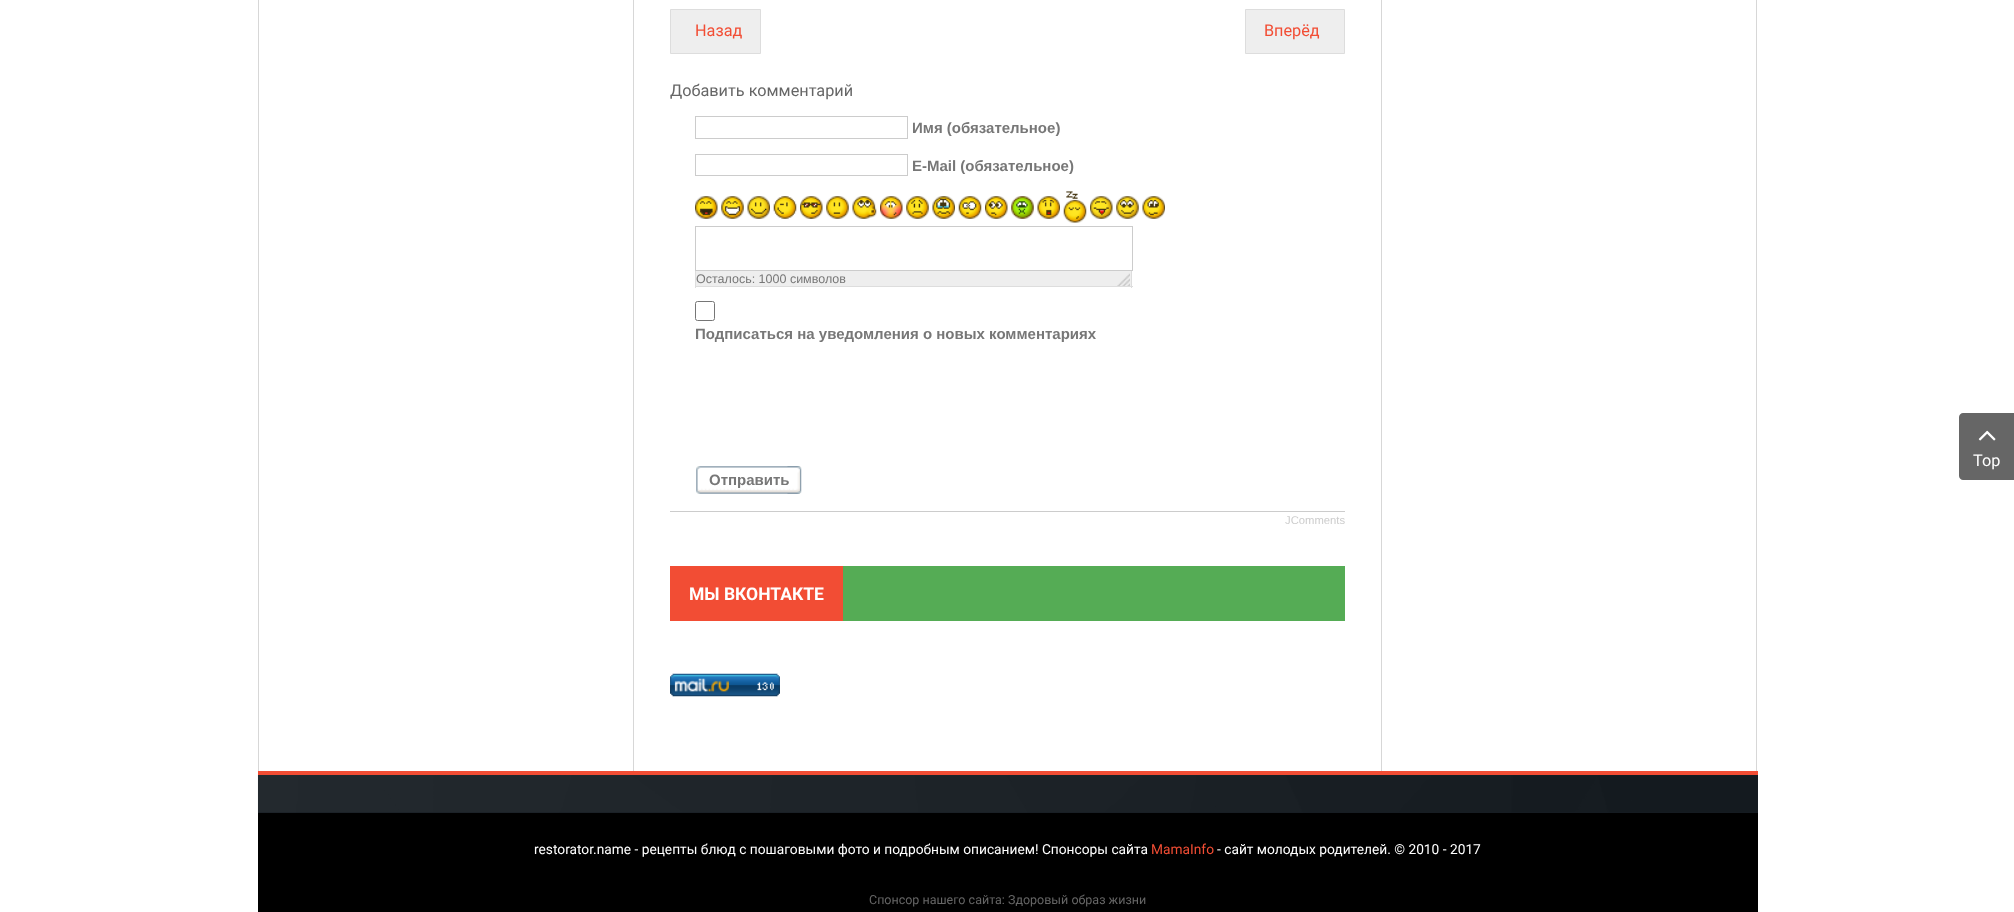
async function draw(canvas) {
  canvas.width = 2014
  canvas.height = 912
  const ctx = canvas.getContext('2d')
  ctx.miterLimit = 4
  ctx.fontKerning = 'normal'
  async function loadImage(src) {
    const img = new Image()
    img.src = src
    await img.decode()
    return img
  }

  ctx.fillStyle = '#fff'
  ctx.fillRect(0, 0, 2014, 912)
  ctx.fillStyle = '#d7d7d7'
  ctx.fillRect(258, 0, 1, 771)
  ctx.fillRect(633, 0, 1, 771)
  ctx.fillStyle = '#eee'
  ctx.beginPath()
  ctx.rect(670.5, 9.5, 90, 44)
  ctx.fill()
  ctx.strokeStyle = '#ddd'
  ctx.stroke()
  ctx.font = '16.25px Roboto'
  ctx.fillStyle = '#f24d34'
  ctx.fillText('Назад', 695, 36)
  ctx.fillStyle = '#eee'
  ctx.beginPath()
  ctx.rect(1245.5, 9.5, 99, 44)
  ctx.fill()
  ctx.stroke()
  ctx.fillStyle = '#f24d34'
  ctx.fillText('Вперёд', 1264, 36)
  ctx.fillStyle = '#666'
  ctx.fillText('Добавить комментарий', 670, 96)
  ctx.strokeStyle = '#ccc'
  ctx.strokeRect(695.5, 116.5, 212, 22)
  ctx.font = 'bold 15px Liberation Sans'
  ctx.fillStyle = '#777'
  ctx.fillText('Имя (обязательное)', 912, 133)
  ctx.strokeRect(695.5, 154.5, 212, 21)
  ctx.fillText('E-Mail (обязательное)', 912, 171)
  ctx.drawImage(await loadImage('image0.png'), 695, 196, 23, 23)
  ctx.drawImage(await loadImage('image1.png'), 721, 196, 23, 23)
  ctx.drawImage(await loadImage('image2.png'), 747, 196, 23, 23)
  ctx.drawImage(await loadImage('image3.png'), 773, 196, 24, 23)
  ctx.drawImage(await loadImage('image4.png'), 800, 196, 23, 23)
  ctx.drawImage(await loadImage('image5.png'), 826, 196, 23, 23)
  ctx.drawImage(await loadImage('image6.png'), 852, 196, 25, 23)
  ctx.drawImage(await loadImage('image7.png'), 880, 196, 23, 23)
  ctx.drawImage(await loadImage('image8.png'), 906, 196, 23, 23)
  ctx.drawImage(await loadImage('image9.png'), 932, 196, 23, 23)
  ctx.drawImage(await loadImage('image10.png'), 958, 196, 24, 23)
  ctx.drawImage(await loadImage('image11.png'), 985, 196, 23, 23)
  ctx.drawImage(await loadImage('image12.png'), 1011, 196, 23, 23)
  ctx.drawImage(await loadImage('image13.png'), 1037, 196, 23, 23)
  ctx.drawImage(await loadImage('image14.png'), 1063, 191, 24, 32)
  ctx.drawImage(await loadImage('image15.png'), 1090, 196, 23, 23)
  ctx.drawImage(await loadImage('image16.png'), 1116, 196, 23, 23)
  ctx.drawImage(await loadImage('image17.png'), 1142, 196, 23, 23)
  ctx.strokeRect(695.5, 226.5, 437, 44)
  ctx.fillStyle = '#eee'
  ctx.fillRect(696, 271, 435, 15)
  ctx.drawImage(await loadImage('image18.png'), 1117, 273, 13, 13)
  ctx.fillStyle = '#ddd'
  ctx.fillRect(1131, 271, 1, 17)
  ctx.fillRect(695, 286, 438, 1)
  ctx.fillRect(695, 271, 1, 17)
  ctx.font = '12.5px Liberation Sans'
  ctx.fillStyle = '#777'
  ctx.fillText('Осталось: 1000 символов', 696, 283)
  ctx.beginPath()
  ctx.roundRect(695.5, 301.5, 19, 19, 2)
  ctx.strokeStyle = '#767676'
  ctx.stroke()
  ctx.font = 'bold 15px Liberation Sans'
  ctx.fillText('Подписаться на уведомления о новых комментариях', 695, 339)
  ctx.drawImage(await loadImage('image19.png'), 696, 466, 105, 28)
  ctx.drawImage(await loadImage('image20.png'), 787, 466, 15, 28)
  ctx.fillText('Отправить', 709, 485)
  ctx.fillStyle = '#ccc'
  ctx.fillRect(670, 511, 675, 1)
  ctx.font = '11.25px Liberation Sans'
  ctx.fillText('JComments', 1285, 524)
  ctx.fillStyle = '#d7d7d7'
  ctx.fillRect(1381, 0, 1, 771)
  ctx.fillStyle = '#55ac55'
  ctx.fillRect(843, 566, 502, 55)
  ctx.fillStyle = '#f24d34'
  ctx.fillRect(670, 566, 173, 55)
  ctx.font = 'bold 17.5px Roboto'
  ctx.fillStyle = '#fff'
  ctx.fillText('МЫ ВКОНТАКТЕ', 689, 600)
  ctx.drawImage(await loadImage('image21.png'), 670, 673, 110, 24)
  ctx.fillStyle = '#d7d7d7'
  ctx.fillRect(1756, 0, 1, 771)
  ctx.fillStyle = '#666'
  ctx.beginPath()
  ctx.moveTo(1963, 413)
  ctx.lineTo(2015, 413)
  ctx.lineTo(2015, 480)
  ctx.lineTo(1963, 480)
  ctx.bezierCurveTo(1961, 480, 1959, 478, 1959, 476)
  ctx.lineTo(1959, 417)
  ctx.bezierCurveTo(1959, 415, 1961, 413, 1963, 413)
  ctx.closePath()
  ctx.fill()
  ctx.drawImage(await loadImage('image22.png'), 1978, 430, 18, 11)
  ctx.font = '16.25px Roboto'
  ctx.fillStyle = '#fff'
  ctx.fillText('Top', 1973, 466)
  ctx.fillStyle = '#171d23'
  ctx.fillRect(258, 775, 1500, 38)
  ctx.drawImage(await loadImage('image23.png'), 257, 771, 1501, 42)
  ctx.fillStyle = '#f24d34'
  ctx.fillRect(258, 771, 1500, 4)
  ctx.fillStyle = '#000'
  ctx.fillRect(258, 813, 1500, 99)
  ctx.font = '13.75px Roboto'
  ctx.fillStyle = '#fff'
  ctx.fillText('restorator.name - рецепты блюд с пошаговыми фото и подробным описанием! Спонсоры сайта', 534, 854)
  ctx.fillStyle = '#f24d34'
  ctx.fillText('MamaInfo', 1151, 854)
  ctx.fillStyle = '#fff'
  ctx.fillText('- сайт молодых родителей. © 2010 - 2017', 1217, 854)
  ctx.font = '12.5px Roboto'
  ctx.fillStyle = '#666'
  ctx.fillText('Спонсор нашего сайта: Здоровый образ жизни', 869, 904)
}

draw(document.querySelector('canvas'))
